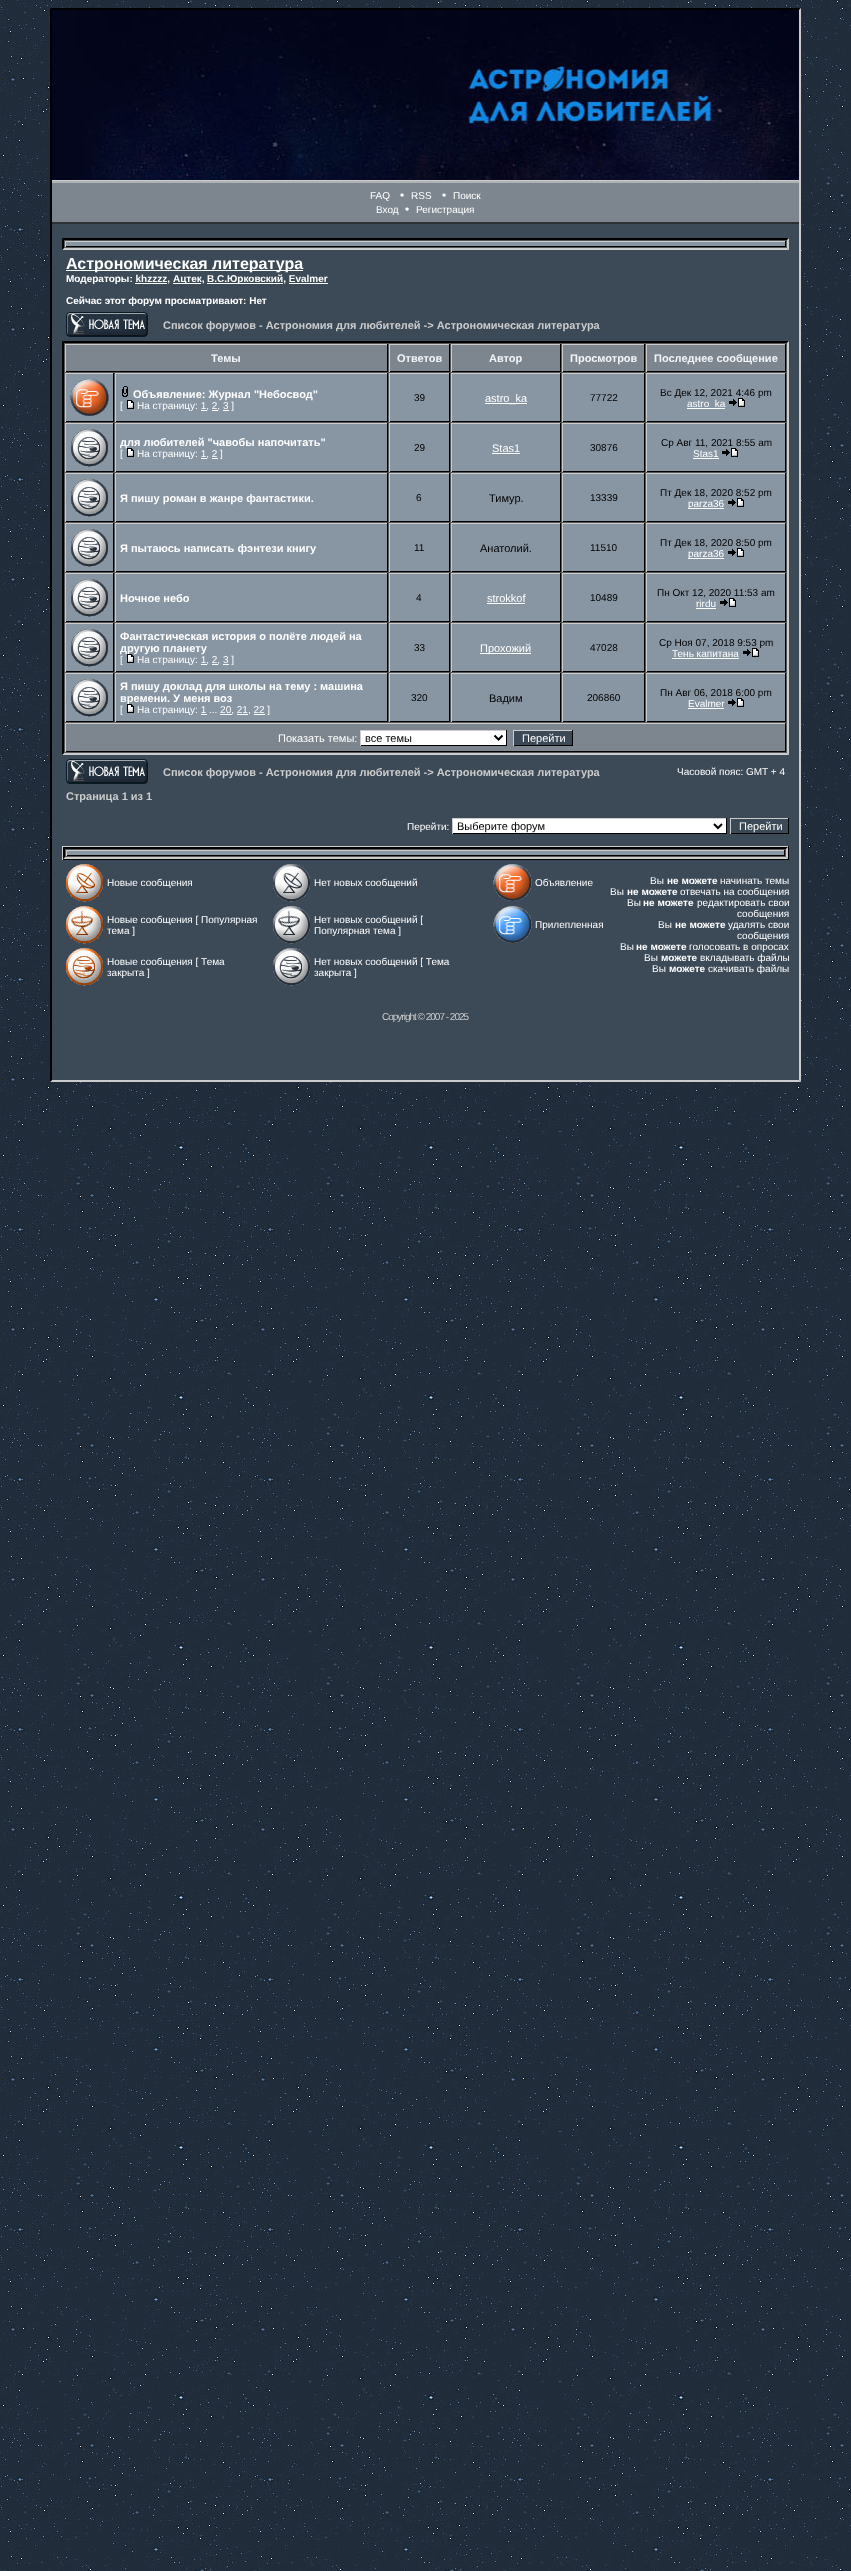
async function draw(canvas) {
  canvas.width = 851
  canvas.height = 2571
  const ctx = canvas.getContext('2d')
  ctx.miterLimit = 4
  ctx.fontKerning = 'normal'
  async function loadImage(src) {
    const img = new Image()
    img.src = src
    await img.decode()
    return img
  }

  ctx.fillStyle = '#fff'
  ctx.fillRect(0, 0, 851, 2571)
  ctx.drawImage(await loadImage('image0.png'), 0, 0, 851, 2571)
  ctx.fillStyle = '#3c4957'
  ctx.fillRect(50, 8, 751, 1074)
  ctx.fillStyle = '#000'
  ctx.beginPath()
  ctx.moveTo(50, 8)
  ctx.lineTo(801, 8)
  ctx.lineTo(799, 10)
  ctx.lineTo(52, 10)
  ctx.closePath()
  ctx.fill()
  ctx.fillStyle = '#ccc'
  ctx.beginPath()
  ctx.moveTo(801, 8)
  ctx.lineTo(801, 1082)
  ctx.lineTo(799, 1080)
  ctx.lineTo(799, 10)
  ctx.closePath()
  ctx.fill()
  ctx.beginPath()
  ctx.moveTo(801, 1082)
  ctx.lineTo(50, 1082)
  ctx.lineTo(52, 1080)
  ctx.lineTo(799, 1080)
  ctx.closePath()
  ctx.fill()
  ctx.fillStyle = '#000'
  ctx.beginPath()
  ctx.moveTo(50, 1082)
  ctx.lineTo(50, 8)
  ctx.lineTo(52, 10)
  ctx.lineTo(52, 1080)
  ctx.closePath()
  ctx.fill()
  ctx.drawImage(await loadImage('image1.png'), 52, 10, 747, 170)
  ctx.drawImage(await loadImage('image2.png'), 52, 180, 747, 44)
  ctx.font = '10px Liberation Sans'
  ctx.fillStyle = '#fff'
  ctx.fillText('FAQ', 370, 199)
  ctx.font = '12px Liberation Sans'
  ctx.fillText('•', 400, 199)
  ctx.font = '10px Liberation Sans'
  ctx.fillText('RSS', 411, 199)
  ctx.font = '12px Liberation Sans'
  ctx.fillText('•', 442, 199)
  ctx.font = '10px Liberation Sans'
  ctx.fillText('Поиск', 453, 199)
  ctx.fillText('Вход', 376, 213)
  ctx.font = '12px Liberation Sans'
  ctx.fillText('•', 405, 213)
  ctx.font = '10px Liberation Sans'
  ctx.fillText('Регистрация', 416, 213)
  ctx.fillStyle = '#565656'
  ctx.fillRect(62, 238, 727, 12)
  ctx.fillStyle = '#000'
  ctx.beginPath()
  ctx.moveTo(62, 238)
  ctx.lineTo(789, 238)
  ctx.lineTo(787, 240)
  ctx.lineTo(64, 240)
  ctx.closePath()
  ctx.fill()
  ctx.fillStyle = '#ccc'
  ctx.beginPath()
  ctx.moveTo(789, 238)
  ctx.lineTo(789, 250)
  ctx.lineTo(787, 248)
  ctx.lineTo(787, 240)
  ctx.closePath()
  ctx.fill()
  ctx.beginPath()
  ctx.moveTo(789, 250)
  ctx.lineTo(62, 250)
  ctx.lineTo(64, 248)
  ctx.lineTo(787, 248)
  ctx.closePath()
  ctx.fill()
  ctx.fillStyle = '#000'
  ctx.beginPath()
  ctx.moveTo(62, 250)
  ctx.lineTo(62, 238)
  ctx.lineTo(64, 240)
  ctx.lineTo(64, 248)
  ctx.closePath()
  ctx.fill()
  ctx.fillStyle = '#8895a3'
  ctx.fillRect(65, 242, 721, 4)
  ctx.fillStyle = '#ccc'
  ctx.fillRect(65, 241, 721, 1)
  ctx.fillStyle = '#000'
  ctx.fillRect(785, 241, 1, 6)
  ctx.fillRect(65, 246, 721, 1)
  ctx.fillStyle = '#ccc'
  ctx.fillRect(65, 241, 1, 6)
  ctx.fillStyle = '#fff'
  ctx.fillRect(66, 270, 237, 1)
  ctx.font = 'bold 16px Liberation Sans'
  ctx.fillText('Астрономическая литература', 66, 269)
  ctx.font = 'bold 10px Liberation Sans'
  ctx.fillText('Модераторы: khzzzz,', 66, 282)
  ctx.fillRect(135, 283, 32, 1)
  ctx.fillRect(173, 283, 28, 1)
  ctx.fillText('Ацтек,', 173, 282)
  ctx.fillRect(207, 283, 76, 1)
  ctx.fillText('В.С.Юрковский, Evalmer', 207, 282)
  ctx.fillRect(289, 283, 39, 1)
  ctx.fillText('Сейчас этот форум просматривают: Нет', 66, 304)
  ctx.drawImage(await loadImage('image3.png'), 66, 312, 82, 25)
  ctx.font = 'bold 11px Liberation Sans'
  ctx.fillStyle = '#ccc'
  ctx.fillText('Список форумов - Астрономия для любителей -> Астрономическая литература', 163, 329)
  ctx.fillStyle = '#565656'
  ctx.fillRect(62, 341, 727, 414)
  ctx.fillStyle = '#000'
  ctx.beginPath()
  ctx.moveTo(62, 341)
  ctx.lineTo(789, 341)
  ctx.lineTo(787, 343)
  ctx.lineTo(64, 343)
  ctx.closePath()
  ctx.fill()
  ctx.fillStyle = '#ccc'
  ctx.beginPath()
  ctx.moveTo(789, 341)
  ctx.lineTo(789, 755)
  ctx.lineTo(787, 753)
  ctx.lineTo(787, 343)
  ctx.closePath()
  ctx.fill()
  ctx.beginPath()
  ctx.moveTo(789, 755)
  ctx.lineTo(62, 755)
  ctx.lineTo(64, 753)
  ctx.lineTo(787, 753)
  ctx.closePath()
  ctx.fill()
  ctx.fillStyle = '#000'
  ctx.beginPath()
  ctx.moveTo(62, 755)
  ctx.lineTo(62, 341)
  ctx.lineTo(64, 343)
  ctx.lineTo(64, 753)
  ctx.closePath()
  ctx.fill()
  ctx.fillStyle = '#7d868f'
  ctx.fillRect(66, 345, 321, 26)
  ctx.fillStyle = '#ccc'
  ctx.fillRect(65, 344, 323, 1)
  ctx.fillStyle = '#000'
  ctx.fillRect(387, 344, 1, 28)
  ctx.fillRect(65, 371, 323, 1)
  ctx.fillStyle = '#ccc'
  ctx.fillRect(65, 344, 1, 28)
  ctx.fillStyle = '#f3f5f8'
  ctx.fillText('Темы', 211, 362)
  ctx.fillStyle = '#7d868f'
  ctx.fillRect(390, 345, 59, 26)
  ctx.fillStyle = '#ccc'
  ctx.fillRect(389, 344, 61, 1)
  ctx.fillStyle = '#000'
  ctx.fillRect(449, 344, 1, 28)
  ctx.fillRect(389, 371, 61, 1)
  ctx.fillStyle = '#ccc'
  ctx.fillRect(389, 344, 1, 28)
  ctx.fillStyle = '#f3f5f8'
  ctx.fillText('Ответов', 397, 362)
  ctx.fillStyle = '#7d868f'
  ctx.fillRect(452, 345, 108, 26)
  ctx.fillStyle = '#ccc'
  ctx.fillRect(451, 344, 110, 1)
  ctx.fillStyle = '#000'
  ctx.fillRect(560, 344, 1, 28)
  ctx.fillRect(451, 371, 110, 1)
  ctx.fillStyle = '#ccc'
  ctx.fillRect(451, 344, 1, 28)
  ctx.fillStyle = '#f3f5f8'
  ctx.fillText('Автор', 489, 362)
  ctx.fillStyle = '#7d868f'
  ctx.fillRect(563, 345, 81, 26)
  ctx.fillStyle = '#ccc'
  ctx.fillRect(562, 344, 83, 1)
  ctx.fillStyle = '#000'
  ctx.fillRect(644, 344, 1, 28)
  ctx.fillRect(562, 371, 83, 1)
  ctx.fillStyle = '#ccc'
  ctx.fillRect(562, 344, 1, 28)
  ctx.fillStyle = '#f3f5f8'
  ctx.fillText('Просмотров', 570, 362)
  ctx.fillStyle = '#7d868f'
  ctx.fillRect(647, 345, 138, 26)
  ctx.fillStyle = '#ccc'
  ctx.fillRect(646, 344, 140, 1)
  ctx.fillStyle = '#000'
  ctx.fillRect(785, 344, 1, 28)
  ctx.fillRect(646, 371, 140, 1)
  ctx.fillStyle = '#ccc'
  ctx.fillRect(646, 344, 1, 28)
  ctx.fillStyle = '#f3f5f8'
  ctx.fillText('Последнее сообщение', 654, 362)
  ctx.fillStyle = '#8895a3'
  ctx.fillRect(66, 374, 47, 47)
  ctx.fillStyle = '#ccc'
  ctx.fillRect(65, 373, 49, 1)
  ctx.fillStyle = '#000'
  ctx.fillRect(113, 373, 1, 49)
  ctx.fillRect(65, 421, 49, 1)
  ctx.fillStyle = '#ccc'
  ctx.fillRect(65, 373, 1, 49)
  ctx.drawImage(await loadImage('image4.png'), 70, 379, 39, 37)
  ctx.fillStyle = '#8895a3'
  ctx.fillRect(116, 374, 271, 47)
  ctx.fillStyle = '#ccc'
  ctx.fillRect(115, 373, 273, 1)
  ctx.fillStyle = '#000'
  ctx.fillRect(387, 373, 1, 49)
  ctx.fillRect(115, 421, 273, 1)
  ctx.fillStyle = '#ccc'
  ctx.fillRect(115, 373, 1, 49)
  ctx.drawImage(await loadImage('image5.png'), 122, 386, 6, 11)
  ctx.fillStyle = '#fff'
  ctx.fillText('Объявление: Журнал "Небосвод"', 133, 398)
  ctx.font = '10px Liberation Sans'
  ctx.fillText('[', 120, 409)
  ctx.drawImage(await loadImage('image6.png'), 127, 400, 7, 9)
  ctx.fillText('На страницу: 1, 2, 3 ]', 137, 409)
  ctx.fillRect(201, 410, 6, 1)
  ctx.fillRect(212, 410, 6, 1)
  ctx.fillRect(223, 410, 6, 1)
  ctx.fillStyle = '#8895a3'
  ctx.fillRect(390, 374, 59, 47)
  ctx.fillStyle = '#ccc'
  ctx.fillRect(389, 373, 61, 1)
  ctx.fillStyle = '#000'
  ctx.fillRect(449, 373, 1, 49)
  ctx.fillRect(389, 421, 61, 1)
  ctx.fillStyle = '#ccc'
  ctx.fillRect(389, 373, 1, 49)
  ctx.fillStyle = '#000'
  ctx.fillText('39', 414, 401)
  ctx.fillStyle = '#8895a3'
  ctx.fillRect(452, 374, 108, 47)
  ctx.fillStyle = '#ccc'
  ctx.fillRect(451, 373, 110, 1)
  ctx.fillStyle = '#000'
  ctx.fillRect(560, 373, 1, 49)
  ctx.fillRect(451, 421, 110, 1)
  ctx.fillStyle = '#ccc'
  ctx.fillRect(451, 373, 1, 49)
  ctx.fillStyle = '#fff'
  ctx.fillRect(485, 403, 42, 1)
  ctx.font = '11px Liberation Sans'
  ctx.fillText('astro_ka', 485, 402)
  ctx.fillStyle = '#8895a3'
  ctx.fillRect(563, 374, 81, 47)
  ctx.fillStyle = '#ccc'
  ctx.fillRect(562, 373, 83, 1)
  ctx.fillStyle = '#000'
  ctx.fillRect(644, 373, 1, 49)
  ctx.fillRect(562, 421, 83, 1)
  ctx.fillStyle = '#ccc'
  ctx.fillRect(562, 373, 1, 49)
  ctx.font = '10px Liberation Sans'
  ctx.fillStyle = '#000'
  ctx.fillText('77722', 590, 401)
  ctx.fillStyle = '#8895a3'
  ctx.fillRect(647, 374, 138, 47)
  ctx.fillStyle = '#ccc'
  ctx.fillRect(646, 373, 140, 1)
  ctx.fillStyle = '#000'
  ctx.fillRect(785, 373, 1, 49)
  ctx.fillRect(646, 421, 140, 1)
  ctx.fillStyle = '#ccc'
  ctx.fillRect(646, 373, 1, 49)
  ctx.fillStyle = '#000'
  ctx.fillText('Вс Дек 12, 2021 4:46 pm', 660, 396)
  ctx.fillStyle = '#fff'
  ctx.fillRect(687, 408, 38, 1)
  ctx.fillText('astro_ka', 687, 407)
  ctx.drawImage(await loadImage('image7.png'), 729, 398, 16, 9)
  ctx.fillStyle = '#8895a3'
  ctx.fillRect(66, 424, 47, 47)
  ctx.fillStyle = '#ccc'
  ctx.fillRect(65, 423, 49, 1)
  ctx.fillStyle = '#000'
  ctx.fillRect(113, 423, 1, 49)
  ctx.fillRect(65, 471, 49, 1)
  ctx.fillStyle = '#ccc'
  ctx.fillRect(65, 423, 1, 49)
  ctx.drawImage(await loadImage('image8.png'), 71, 429, 37, 38)
  ctx.fillStyle = '#8895a3'
  ctx.fillRect(116, 424, 271, 47)
  ctx.fillStyle = '#ccc'
  ctx.fillRect(115, 423, 273, 1)
  ctx.fillStyle = '#000'
  ctx.fillRect(387, 423, 1, 49)
  ctx.fillRect(115, 471, 273, 1)
  ctx.fillStyle = '#ccc'
  ctx.fillRect(115, 423, 1, 49)
  ctx.font = 'bold 11px Liberation Sans'
  ctx.fillStyle = '#fff'
  ctx.fillText('для любителей "чавобы напочитать"', 120, 446)
  ctx.font = '10px Liberation Sans'
  ctx.fillText('[', 120, 457)
  ctx.drawImage(await loadImage('image6.png'), 127, 448, 7, 9)
  ctx.fillText('На страницу: 1, 2 ]', 137, 457)
  ctx.fillRect(201, 458, 6, 1)
  ctx.fillRect(212, 458, 6, 1)
  ctx.fillStyle = '#8895a3'
  ctx.fillRect(390, 424, 59, 47)
  ctx.fillStyle = '#ccc'
  ctx.fillRect(389, 423, 61, 1)
  ctx.fillStyle = '#000'
  ctx.fillRect(449, 423, 1, 49)
  ctx.fillRect(389, 471, 61, 1)
  ctx.fillStyle = '#ccc'
  ctx.fillRect(389, 423, 1, 49)
  ctx.fillStyle = '#000'
  ctx.fillText('29', 414, 451)
  ctx.fillStyle = '#8895a3'
  ctx.fillRect(452, 424, 108, 47)
  ctx.fillStyle = '#ccc'
  ctx.fillRect(451, 423, 110, 1)
  ctx.fillStyle = '#000'
  ctx.fillRect(560, 423, 1, 49)
  ctx.fillRect(451, 471, 110, 1)
  ctx.fillStyle = '#ccc'
  ctx.fillRect(451, 423, 1, 49)
  ctx.font = '11px Liberation Sans'
  ctx.fillStyle = '#fff'
  ctx.fillText('Stas1', 492, 452)
  ctx.fillRect(492, 453, 28, 1)
  ctx.fillStyle = '#8895a3'
  ctx.fillRect(563, 424, 81, 47)
  ctx.fillStyle = '#ccc'
  ctx.fillRect(562, 423, 83, 1)
  ctx.fillStyle = '#000'
  ctx.fillRect(644, 423, 1, 49)
  ctx.fillRect(562, 471, 83, 1)
  ctx.fillStyle = '#ccc'
  ctx.fillRect(562, 423, 1, 49)
  ctx.font = '10px Liberation Sans'
  ctx.fillStyle = '#000'
  ctx.fillText('30876', 590, 451)
  ctx.fillStyle = '#8895a3'
  ctx.fillRect(647, 424, 138, 47)
  ctx.fillStyle = '#ccc'
  ctx.fillRect(646, 423, 140, 1)
  ctx.fillStyle = '#000'
  ctx.fillRect(785, 423, 1, 49)
  ctx.fillRect(646, 471, 140, 1)
  ctx.fillStyle = '#ccc'
  ctx.fillRect(646, 423, 1, 49)
  ctx.fillStyle = '#000'
  ctx.fillText('Ср Авг 11, 2021 8:55 am', 661, 446)
  ctx.fillStyle = '#fff'
  ctx.fillText('Stas1', 693, 457)
  ctx.fillRect(693, 458, 26, 1)
  ctx.drawImage(await loadImage('image7.png'), 722, 448, 16, 9)
  ctx.fillStyle = '#8895a3'
  ctx.fillRect(66, 474, 47, 47)
  ctx.fillStyle = '#ccc'
  ctx.fillRect(65, 473, 49, 1)
  ctx.fillStyle = '#000'
  ctx.fillRect(113, 473, 1, 49)
  ctx.fillRect(65, 521, 49, 1)
  ctx.fillStyle = '#ccc'
  ctx.fillRect(65, 473, 1, 49)
  ctx.drawImage(await loadImage('image8.png'), 71, 479, 37, 38)
  ctx.fillStyle = '#8895a3'
  ctx.fillRect(116, 474, 271, 47)
  ctx.fillStyle = '#ccc'
  ctx.fillRect(115, 473, 273, 1)
  ctx.fillStyle = '#000'
  ctx.fillRect(387, 473, 1, 49)
  ctx.fillRect(115, 521, 273, 1)
  ctx.fillStyle = '#ccc'
  ctx.fillRect(115, 473, 1, 49)
  ctx.font = 'bold 11px Liberation Sans'
  ctx.fillStyle = '#fff'
  ctx.fillText('Я пишу роман в жанре фантастики.', 120, 502)
  ctx.fillStyle = '#8895a3'
  ctx.fillRect(390, 474, 59, 47)
  ctx.fillStyle = '#ccc'
  ctx.fillRect(389, 473, 61, 1)
  ctx.fillStyle = '#000'
  ctx.fillRect(449, 473, 1, 49)
  ctx.fillRect(389, 521, 61, 1)
  ctx.fillStyle = '#ccc'
  ctx.fillRect(389, 473, 1, 49)
  ctx.font = '10px Liberation Sans'
  ctx.fillStyle = '#000'
  ctx.fillText('6', 416, 501)
  ctx.fillStyle = '#8895a3'
  ctx.fillRect(452, 474, 108, 47)
  ctx.fillStyle = '#ccc'
  ctx.fillRect(451, 473, 110, 1)
  ctx.fillStyle = '#000'
  ctx.fillRect(560, 473, 1, 49)
  ctx.fillRect(451, 521, 110, 1)
  ctx.fillStyle = '#ccc'
  ctx.fillRect(451, 473, 1, 49)
  ctx.font = '11px Liberation Sans'
  ctx.fillStyle = '#000'
  ctx.fillText('Тимур.', 489, 502)
  ctx.fillStyle = '#8895a3'
  ctx.fillRect(563, 474, 81, 47)
  ctx.fillStyle = '#ccc'
  ctx.fillRect(562, 473, 83, 1)
  ctx.fillStyle = '#000'
  ctx.fillRect(644, 473, 1, 49)
  ctx.fillRect(562, 521, 83, 1)
  ctx.fillStyle = '#ccc'
  ctx.fillRect(562, 473, 1, 49)
  ctx.font = '10px Liberation Sans'
  ctx.fillStyle = '#000'
  ctx.fillText('13339', 590, 501)
  ctx.fillStyle = '#8895a3'
  ctx.fillRect(647, 474, 138, 47)
  ctx.fillStyle = '#ccc'
  ctx.fillRect(646, 473, 140, 1)
  ctx.fillStyle = '#000'
  ctx.fillRect(785, 473, 1, 49)
  ctx.fillRect(646, 521, 140, 1)
  ctx.fillStyle = '#ccc'
  ctx.fillRect(646, 473, 1, 49)
  ctx.fillStyle = '#000'
  ctx.fillText('Пт Дек 18, 2020 8:52 pm', 660, 496)
  ctx.fillStyle = '#fff'
  ctx.fillRect(688, 508, 36, 1)
  ctx.fillText('parza36', 688, 507)
  ctx.drawImage(await loadImage('image7.png'), 728, 498, 16, 9)
  ctx.fillStyle = '#8895a3'
  ctx.fillRect(66, 524, 47, 47)
  ctx.fillStyle = '#ccc'
  ctx.fillRect(65, 523, 49, 1)
  ctx.fillStyle = '#000'
  ctx.fillRect(113, 523, 1, 49)
  ctx.fillRect(65, 571, 49, 1)
  ctx.fillStyle = '#ccc'
  ctx.fillRect(65, 523, 1, 49)
  ctx.drawImage(await loadImage('image8.png'), 71, 529, 37, 38)
  ctx.fillStyle = '#8895a3'
  ctx.fillRect(116, 524, 271, 47)
  ctx.fillStyle = '#ccc'
  ctx.fillRect(115, 523, 273, 1)
  ctx.fillStyle = '#000'
  ctx.fillRect(387, 523, 1, 49)
  ctx.fillRect(115, 571, 273, 1)
  ctx.fillStyle = '#ccc'
  ctx.fillRect(115, 523, 1, 49)
  ctx.font = 'bold 11px Liberation Sans'
  ctx.fillStyle = '#fff'
  ctx.fillText('Я пытаюсь написать фэнтези книгу', 120, 552)
  ctx.fillStyle = '#8895a3'
  ctx.fillRect(390, 524, 59, 47)
  ctx.fillStyle = '#ccc'
  ctx.fillRect(389, 523, 61, 1)
  ctx.fillStyle = '#000'
  ctx.fillRect(449, 523, 1, 49)
  ctx.fillRect(389, 571, 61, 1)
  ctx.fillStyle = '#ccc'
  ctx.fillRect(389, 523, 1, 49)
  ctx.font = '10px Liberation Sans'
  ctx.fillStyle = '#000'
  ctx.fillText('11', 414, 551)
  ctx.fillStyle = '#8895a3'
  ctx.fillRect(452, 524, 108, 47)
  ctx.fillStyle = '#ccc'
  ctx.fillRect(451, 523, 110, 1)
  ctx.fillStyle = '#000'
  ctx.fillRect(560, 523, 1, 49)
  ctx.fillRect(451, 571, 110, 1)
  ctx.fillStyle = '#ccc'
  ctx.fillRect(451, 523, 1, 49)
  ctx.font = '11px Liberation Sans'
  ctx.fillStyle = '#000'
  ctx.fillText('Анатолий.', 480, 552)
  ctx.fillStyle = '#8895a3'
  ctx.fillRect(563, 524, 81, 47)
  ctx.fillStyle = '#ccc'
  ctx.fillRect(562, 523, 83, 1)
  ctx.fillStyle = '#000'
  ctx.fillRect(644, 523, 1, 49)
  ctx.fillRect(562, 571, 83, 1)
  ctx.fillStyle = '#ccc'
  ctx.fillRect(562, 523, 1, 49)
  ctx.font = '10px Liberation Sans'
  ctx.fillStyle = '#000'
  ctx.fillText('11510', 590, 551)
  ctx.fillStyle = '#8895a3'
  ctx.fillRect(647, 524, 138, 47)
  ctx.fillStyle = '#ccc'
  ctx.fillRect(646, 523, 140, 1)
  ctx.fillStyle = '#000'
  ctx.fillRect(785, 523, 1, 49)
  ctx.fillRect(646, 571, 140, 1)
  ctx.fillStyle = '#ccc'
  ctx.fillRect(646, 523, 1, 49)
  ctx.fillStyle = '#000'
  ctx.fillText('Пт Дек 18, 2020 8:50 pm', 660, 546)
  ctx.fillStyle = '#fff'
  ctx.fillRect(688, 558, 36, 1)
  ctx.fillText('parza36', 688, 557)
  ctx.drawImage(await loadImage('image7.png'), 728, 548, 16, 9)
  ctx.fillStyle = '#8895a3'
  ctx.fillRect(66, 574, 47, 47)
  ctx.fillStyle = '#ccc'
  ctx.fillRect(65, 573, 49, 1)
  ctx.fillStyle = '#000'
  ctx.fillRect(113, 573, 1, 49)
  ctx.fillRect(65, 621, 49, 1)
  ctx.fillStyle = '#ccc'
  ctx.fillRect(65, 573, 1, 49)
  ctx.drawImage(await loadImage('image8.png'), 71, 579, 37, 38)
  ctx.fillStyle = '#8895a3'
  ctx.fillRect(116, 574, 271, 47)
  ctx.fillStyle = '#ccc'
  ctx.fillRect(115, 573, 273, 1)
  ctx.fillStyle = '#000'
  ctx.fillRect(387, 573, 1, 49)
  ctx.fillRect(115, 621, 273, 1)
  ctx.fillStyle = '#ccc'
  ctx.fillRect(115, 573, 1, 49)
  ctx.font = 'bold 11px Liberation Sans'
  ctx.fillStyle = '#fff'
  ctx.fillText('Ночное небо', 120, 602)
  ctx.fillStyle = '#8895a3'
  ctx.fillRect(390, 574, 59, 47)
  ctx.fillStyle = '#ccc'
  ctx.fillRect(389, 573, 61, 1)
  ctx.fillStyle = '#000'
  ctx.fillRect(449, 573, 1, 49)
  ctx.fillRect(389, 621, 61, 1)
  ctx.fillStyle = '#ccc'
  ctx.fillRect(389, 573, 1, 49)
  ctx.font = '10px Liberation Sans'
  ctx.fillStyle = '#000'
  ctx.fillText('4', 416, 601)
  ctx.fillStyle = '#8895a3'
  ctx.fillRect(452, 574, 108, 47)
  ctx.fillStyle = '#ccc'
  ctx.fillRect(451, 573, 110, 1)
  ctx.fillStyle = '#000'
  ctx.fillRect(560, 573, 1, 49)
  ctx.fillRect(451, 621, 110, 1)
  ctx.fillStyle = '#ccc'
  ctx.fillRect(451, 573, 1, 49)
  ctx.font = '11px Liberation Sans'
  ctx.fillStyle = '#fff'
  ctx.fillText('strokkof', 487, 602)
  ctx.fillRect(487, 603, 38, 1)
  ctx.fillStyle = '#8895a3'
  ctx.fillRect(563, 574, 81, 47)
  ctx.fillStyle = '#ccc'
  ctx.fillRect(562, 573, 83, 1)
  ctx.fillStyle = '#000'
  ctx.fillRect(644, 573, 1, 49)
  ctx.fillRect(562, 621, 83, 1)
  ctx.fillStyle = '#ccc'
  ctx.fillRect(562, 573, 1, 49)
  ctx.font = '10px Liberation Sans'
  ctx.fillStyle = '#000'
  ctx.fillText('10489', 590, 601)
  ctx.fillStyle = '#8895a3'
  ctx.fillRect(647, 574, 138, 47)
  ctx.fillStyle = '#ccc'
  ctx.fillRect(646, 573, 140, 1)
  ctx.fillStyle = '#000'
  ctx.fillRect(785, 573, 1, 49)
  ctx.fillRect(646, 621, 140, 1)
  ctx.fillStyle = '#ccc'
  ctx.fillRect(646, 573, 1, 49)
  ctx.fillStyle = '#000'
  ctx.fillText('Пн Окт 12, 2020 11:53 am', 657, 596)
  ctx.fillStyle = '#fff'
  ctx.fillText('rirdu', 696, 607)
  ctx.fillRect(696, 608, 20, 1)
  ctx.drawImage(await loadImage('image7.png'), 720, 598, 16, 9)
  ctx.fillStyle = '#8895a3'
  ctx.fillRect(66, 624, 47, 47)
  ctx.fillStyle = '#ccc'
  ctx.fillRect(65, 623, 49, 1)
  ctx.fillStyle = '#000'
  ctx.fillRect(113, 623, 1, 49)
  ctx.fillRect(65, 671, 49, 1)
  ctx.fillStyle = '#ccc'
  ctx.fillRect(65, 623, 1, 49)
  ctx.drawImage(await loadImage('image8.png'), 71, 629, 37, 38)
  ctx.fillStyle = '#8895a3'
  ctx.fillRect(116, 624, 271, 47)
  ctx.fillStyle = '#ccc'
  ctx.fillRect(115, 623, 273, 1)
  ctx.fillStyle = '#000'
  ctx.fillRect(387, 623, 1, 49)
  ctx.fillRect(115, 671, 273, 1)
  ctx.fillStyle = '#ccc'
  ctx.fillRect(115, 623, 1, 49)
  ctx.font = 'bold 11px Liberation Sans'
  ctx.fillStyle = '#fff'
  ctx.fillText('Фантастическая история о полёте людей на', 120, 640)
  ctx.fillText('другую планету', 120, 652)
  ctx.font = '10px Liberation Sans'
  ctx.fillText('[', 120, 663)
  ctx.drawImage(await loadImage('image9.png'), 127, 654, 7, 9)
  ctx.fillText('На страницу: 1, 2, 3 ]', 137, 663)
  ctx.fillRect(201, 664, 6, 1)
  ctx.fillRect(212, 664, 6, 1)
  ctx.fillRect(223, 664, 6, 1)
  ctx.fillStyle = '#8895a3'
  ctx.fillRect(390, 624, 59, 47)
  ctx.fillStyle = '#ccc'
  ctx.fillRect(389, 623, 61, 1)
  ctx.fillStyle = '#000'
  ctx.fillRect(449, 623, 1, 49)
  ctx.fillRect(389, 671, 61, 1)
  ctx.fillStyle = '#ccc'
  ctx.fillRect(389, 623, 1, 49)
  ctx.fillStyle = '#000'
  ctx.fillText('33', 414, 651)
  ctx.fillStyle = '#8895a3'
  ctx.fillRect(452, 624, 108, 47)
  ctx.fillStyle = '#ccc'
  ctx.fillRect(451, 623, 110, 1)
  ctx.fillStyle = '#000'
  ctx.fillRect(560, 623, 1, 49)
  ctx.fillRect(451, 671, 110, 1)
  ctx.fillStyle = '#ccc'
  ctx.fillRect(451, 623, 1, 49)
  ctx.fillStyle = '#fff'
  ctx.fillRect(480, 653, 51, 1)
  ctx.font = '11px Liberation Sans'
  ctx.fillText('Прохожий', 480, 652)
  ctx.fillStyle = '#8895a3'
  ctx.fillRect(563, 624, 81, 47)
  ctx.fillStyle = '#ccc'
  ctx.fillRect(562, 623, 83, 1)
  ctx.fillStyle = '#000'
  ctx.fillRect(644, 623, 1, 49)
  ctx.fillRect(562, 671, 83, 1)
  ctx.fillStyle = '#ccc'
  ctx.fillRect(562, 623, 1, 49)
  ctx.font = '10px Liberation Sans'
  ctx.fillStyle = '#000'
  ctx.fillText('47028', 590, 651)
  ctx.fillStyle = '#8895a3'
  ctx.fillRect(647, 624, 138, 47)
  ctx.fillStyle = '#ccc'
  ctx.fillRect(646, 623, 140, 1)
  ctx.fillStyle = '#000'
  ctx.fillRect(785, 623, 1, 49)
  ctx.fillRect(646, 671, 140, 1)
  ctx.fillStyle = '#ccc'
  ctx.fillRect(646, 623, 1, 49)
  ctx.fillStyle = '#000'
  ctx.fillText('Ср Ноя 07, 2018 9:53 pm', 659, 646)
  ctx.fillStyle = '#fff'
  ctx.fillText('Тень капитана', 672, 657)
  ctx.fillRect(672, 658, 67, 1)
  ctx.drawImage(await loadImage('image7.png'), 743, 648, 16, 9)
  ctx.fillStyle = '#8895a3'
  ctx.fillRect(66, 674, 47, 47)
  ctx.fillStyle = '#ccc'
  ctx.fillRect(65, 673, 49, 1)
  ctx.fillStyle = '#000'
  ctx.fillRect(113, 673, 1, 49)
  ctx.fillRect(65, 721, 49, 1)
  ctx.fillStyle = '#ccc'
  ctx.fillRect(65, 673, 1, 49)
  ctx.drawImage(await loadImage('image8.png'), 71, 679, 37, 38)
  ctx.fillStyle = '#8895a3'
  ctx.fillRect(116, 674, 271, 47)
  ctx.fillStyle = '#ccc'
  ctx.fillRect(115, 673, 273, 1)
  ctx.fillStyle = '#000'
  ctx.fillRect(387, 673, 1, 49)
  ctx.fillRect(115, 721, 273, 1)
  ctx.fillStyle = '#ccc'
  ctx.fillRect(115, 673, 1, 49)
  ctx.font = 'bold 11px Liberation Sans'
  ctx.fillStyle = '#fff'
  ctx.fillText('Я пишу доклад для школы на тему : машина', 120, 690)
  ctx.fillText('времени. У меня воз', 120, 702)
  ctx.font = '10px Liberation Sans'
  ctx.fillText('[', 120, 713)
  ctx.drawImage(await loadImage('image6.png'), 127, 704, 7, 9)
  ctx.fillText('На страницу: 1 ... 20, 21, 22 ]', 137, 713)
  ctx.fillRect(201, 714, 6, 1)
  ctx.fillRect(220, 714, 12, 1)
  ctx.fillRect(237, 714, 11, 1)
  ctx.fillRect(254, 714, 11, 1)
  ctx.fillStyle = '#8895a3'
  ctx.fillRect(390, 674, 59, 47)
  ctx.fillStyle = '#ccc'
  ctx.fillRect(389, 673, 61, 1)
  ctx.fillStyle = '#000'
  ctx.fillRect(449, 673, 1, 49)
  ctx.fillRect(389, 721, 61, 1)
  ctx.fillStyle = '#ccc'
  ctx.fillRect(389, 673, 1, 49)
  ctx.fillStyle = '#000'
  ctx.fillText('320', 411, 701)
  ctx.fillStyle = '#8895a3'
  ctx.fillRect(452, 674, 108, 47)
  ctx.fillStyle = '#ccc'
  ctx.fillRect(451, 673, 110, 1)
  ctx.fillStyle = '#000'
  ctx.fillRect(560, 673, 1, 49)
  ctx.fillRect(451, 721, 110, 1)
  ctx.fillStyle = '#ccc'
  ctx.fillRect(451, 673, 1, 49)
  ctx.font = '11px Liberation Sans'
  ctx.fillStyle = '#000'
  ctx.fillText('Вадим', 489, 702)
  ctx.fillStyle = '#8895a3'
  ctx.fillRect(563, 674, 81, 47)
  ctx.fillStyle = '#ccc'
  ctx.fillRect(562, 673, 83, 1)
  ctx.fillStyle = '#000'
  ctx.fillRect(644, 673, 1, 49)
  ctx.fillRect(562, 721, 83, 1)
  ctx.fillStyle = '#ccc'
  ctx.fillRect(562, 673, 1, 49)
  ctx.font = '10px Liberation Sans'
  ctx.fillStyle = '#000'
  ctx.fillText('206860', 587, 701)
  ctx.fillStyle = '#8895a3'
  ctx.fillRect(647, 674, 138, 47)
  ctx.fillStyle = '#ccc'
  ctx.fillRect(646, 673, 140, 1)
  ctx.fillStyle = '#000'
  ctx.fillRect(785, 673, 1, 49)
  ctx.fillRect(646, 721, 140, 1)
  ctx.fillStyle = '#ccc'
  ctx.fillRect(646, 673, 1, 49)
  ctx.fillStyle = '#000'
  ctx.fillText('Пн Авг 06, 2018 6:00 pm', 660, 696)
  ctx.fillStyle = '#fff'
  ctx.fillText('Evalmer', 688, 707)
  ctx.fillRect(688, 708, 36, 1)
  ctx.drawImage(await loadImage('image7.png'), 728, 698, 16, 9)
  ctx.fillStyle = '#7d868f'
  ctx.fillRect(66, 724, 719, 27)
  ctx.fillStyle = '#ccc'
  ctx.fillRect(65, 723, 721, 1)
  ctx.fillStyle = '#000'
  ctx.fillRect(785, 723, 1, 29)
  ctx.fillRect(65, 751, 721, 1)
  ctx.fillStyle = '#ccc'
  ctx.fillRect(65, 723, 1, 29)
  ctx.font = '11px Liberation Sans'
  ctx.fillStyle = '#fff'
  ctx.fillText('Показать темы:', 278, 742)
  ctx.fillRect(361, 731, 145, 14)
  ctx.fillStyle = '#ccc'
  ctx.fillRect(360, 730, 147, 1)
  ctx.fillStyle = '#000'
  ctx.fillRect(506, 730, 1, 16)
  ctx.fillRect(360, 745, 147, 1)
  ctx.fillStyle = '#ccc'
  ctx.fillRect(360, 730, 1, 16)
  ctx.beginPath()
  ctx.moveTo(494.5, 735.5)
  ctx.lineTo(498.5, 739.5)
  ctx.lineTo(502.5, 735.5)
  ctx.strokeStyle = '#000'
  ctx.lineWidth = 2
  ctx.stroke()
  ctx.fillStyle = '#000'
  ctx.fillText('все темы', 365, 742)
  ctx.fillStyle = '#3c4957'
  ctx.fillRect(514, 731, 58, 14)
  ctx.fillStyle = '#ccc'
  ctx.fillRect(513, 730, 60, 1)
  ctx.fillStyle = '#000'
  ctx.fillRect(572, 730, 1, 16)
  ctx.fillRect(513, 745, 60, 1)
  ctx.fillStyle = '#ccc'
  ctx.fillRect(513, 730, 1, 16)
  ctx.fillStyle = '#fff'
  ctx.fillText('Перейти', 522, 742)
  ctx.drawImage(await loadImage('image3.png'), 66, 759, 82, 25)
  ctx.font = 'bold 11px Liberation Sans'
  ctx.fillStyle = '#ccc'
  ctx.fillText('Список форумов - Астрономия для любителей -> Астрономическая литература', 163, 776)
  ctx.font = '10px Liberation Sans'
  ctx.fillStyle = '#fff'
  ctx.fillText('Часовой пояс: GMT + 4', 677, 775)
  ctx.font = 'bold 11px Liberation Sans'
  ctx.fillStyle = '#ccc'
  ctx.fillText('Страница 1 из 1', 66, 800)
  ctx.font = '10px Liberation Sans'
  ctx.fillStyle = '#fff'
  ctx.fillText('Перейти:', 407, 830)
  ctx.fillRect(453, 819, 273, 14)
  ctx.fillStyle = '#ccc'
  ctx.fillRect(452, 818, 275, 1)
  ctx.fillStyle = '#000'
  ctx.fillRect(726, 818, 1, 16)
  ctx.fillRect(452, 833, 275, 1)
  ctx.fillStyle = '#ccc'
  ctx.fillRect(452, 818, 1, 16)
  ctx.beginPath()
  ctx.moveTo(714, 824)
  ctx.lineTo(718, 828)
  ctx.lineTo(722, 824)
  ctx.stroke()
  ctx.font = '11px Liberation Sans'
  ctx.fillStyle = '#000'
  ctx.fillText('Выберите форум', 457, 830)
  ctx.fillStyle = '#ccc'
  ctx.fillRect(730, 818, 59, 1)
  ctx.fillStyle = '#000'
  ctx.fillRect(788, 818, 1, 16)
  ctx.fillRect(730, 833, 59, 1)
  ctx.fillStyle = '#ccc'
  ctx.fillRect(730, 818, 1, 16)
  ctx.fillStyle = '#fff'
  ctx.fillText('Перейти', 739, 830)
  ctx.fillStyle = '#ccc'
  ctx.fillRect(62, 846, 727, 1)
  ctx.fillStyle = '#000'
  ctx.fillRect(788, 846, 1, 14)
  ctx.fillRect(62, 859, 727, 1)
  ctx.fillStyle = '#ccc'
  ctx.fillRect(62, 846, 1, 14)
  ctx.fillStyle = '#565656'
  ctx.fillRect(63, 847, 725, 12)
  ctx.fillStyle = '#000'
  ctx.beginPath()
  ctx.moveTo(63, 847)
  ctx.lineTo(788, 847)
  ctx.lineTo(786, 849)
  ctx.lineTo(65, 849)
  ctx.closePath()
  ctx.fill()
  ctx.fillStyle = '#ccc'
  ctx.beginPath()
  ctx.moveTo(788, 847)
  ctx.lineTo(788, 859)
  ctx.lineTo(786, 857)
  ctx.lineTo(786, 849)
  ctx.closePath()
  ctx.fill()
  ctx.beginPath()
  ctx.moveTo(788, 859)
  ctx.lineTo(63, 859)
  ctx.lineTo(65, 857)
  ctx.lineTo(786, 857)
  ctx.closePath()
  ctx.fill()
  ctx.fillStyle = '#000'
  ctx.beginPath()
  ctx.moveTo(63, 859)
  ctx.lineTo(63, 847)
  ctx.lineTo(65, 849)
  ctx.lineTo(65, 857)
  ctx.closePath()
  ctx.fill()
  ctx.fillStyle = '#8895a3'
  ctx.fillRect(66, 851, 719, 4)
  ctx.fillStyle = '#ccc'
  ctx.fillRect(66, 850, 719, 1)
  ctx.fillStyle = '#000'
  ctx.fillRect(784, 850, 1, 6)
  ctx.fillRect(66, 855, 719, 1)
  ctx.fillStyle = '#ccc'
  ctx.fillRect(66, 850, 1, 6)
  ctx.drawImage(await loadImage('image10.png'), 66, 864, 37, 38)
  ctx.font = '10px Liberation Sans'
  ctx.fillStyle = '#fff'
  ctx.fillText('Новые сообщения', 107, 886)
  ctx.drawImage(await loadImage('image11.png'), 273, 864, 37, 38)
  ctx.fillText('Нет новых сообщений', 314, 886)
  ctx.drawImage(await loadImage('image12.png'), 493, 864, 39, 37)
  ctx.fillText('Объявление', 535, 886)
  ctx.drawImage(await loadImage('image13.png'), 66, 906, 37, 38)
  ctx.fillText('Новые сообщения [ Популярная', 107, 923)
  ctx.fillText('тема ]', 107, 934)
  ctx.drawImage(await loadImage('image14.png'), 273, 906, 37, 38)
  ctx.fillText('Нет новых сообщений [', 314, 923)
  ctx.fillText('Популярная тема ]', 314, 934)
  ctx.drawImage(await loadImage('image15.png'), 493, 906, 39, 37)
  ctx.fillText('Прилепленная', 535, 928)
  ctx.drawImage(await loadImage('image16.png'), 66, 948, 37, 38)
  ctx.fillText('Новые сообщения [ Тема', 107, 965)
  ctx.fillText('закрыта ]', 107, 976)
  ctx.drawImage(await loadImage('image17.png'), 273, 948, 37, 38)
  ctx.fillText('Нет новых сообщений [ Тема', 314, 965)
  ctx.fillText('закрыта ]', 314, 976)
  ctx.fillText('Вы', 650, 884)
  ctx.font = 'bold 10px Liberation Sans'
  ctx.fillText('не можете', 667, 884)
  ctx.font = '10px Liberation Sans'
  ctx.fillText('начинать темы', 720, 884)
  ctx.fillText('Вы', 610, 895)
  ctx.font = 'bold 10px Liberation Sans'
  ctx.fillText('не можете', 627, 895)
  ctx.font = '10px Liberation Sans'
  ctx.fillText('отвечать на сообщения', 680, 895)
  ctx.fillText('Вы', 627, 906)
  ctx.font = 'bold 10px Liberation Sans'
  ctx.fillText('не можете', 643, 906)
  ctx.font = '10px Liberation Sans'
  ctx.fillText('редактировать свои', 697, 906)
  ctx.fillText('сообщения', 737, 917)
  ctx.fillText('Вы', 658, 928)
  ctx.font = 'bold 10px Liberation Sans'
  ctx.fillText('не можете', 675, 928)
  ctx.font = '10px Liberation Sans'
  ctx.fillText('удалять свои', 728, 928)
  ctx.fillText('сообщения', 737, 939)
  ctx.fillText('Вы', 620, 950)
  ctx.font = 'bold 10px Liberation Sans'
  ctx.fillText('не можете', 636, 950)
  ctx.font = '10px Liberation Sans'
  ctx.fillText('голосовать в опросах', 689, 950)
  ctx.fillText('Вы', 644, 961)
  ctx.font = 'bold 10px Liberation Sans'
  ctx.fillText('можете', 661, 961)
  ctx.font = '10px Liberation Sans'
  ctx.fillText('вкладывать файлы', 700, 961)
  ctx.fillText('Вы', 652, 972)
  ctx.font = 'bold 10px Liberation Sans'
  ctx.fillText('можете', 669, 972)
  ctx.font = '10px Liberation Sans'
  ctx.fillText('скачивать файлы', 708, 972)
  ctx.letterSpacing = '-1px'
  ctx.fillStyle = '#ccc'
  ctx.fillText('Copyright © 2007 - 2025', 382, 1020)
}

draw(document.querySelector('canvas'))
